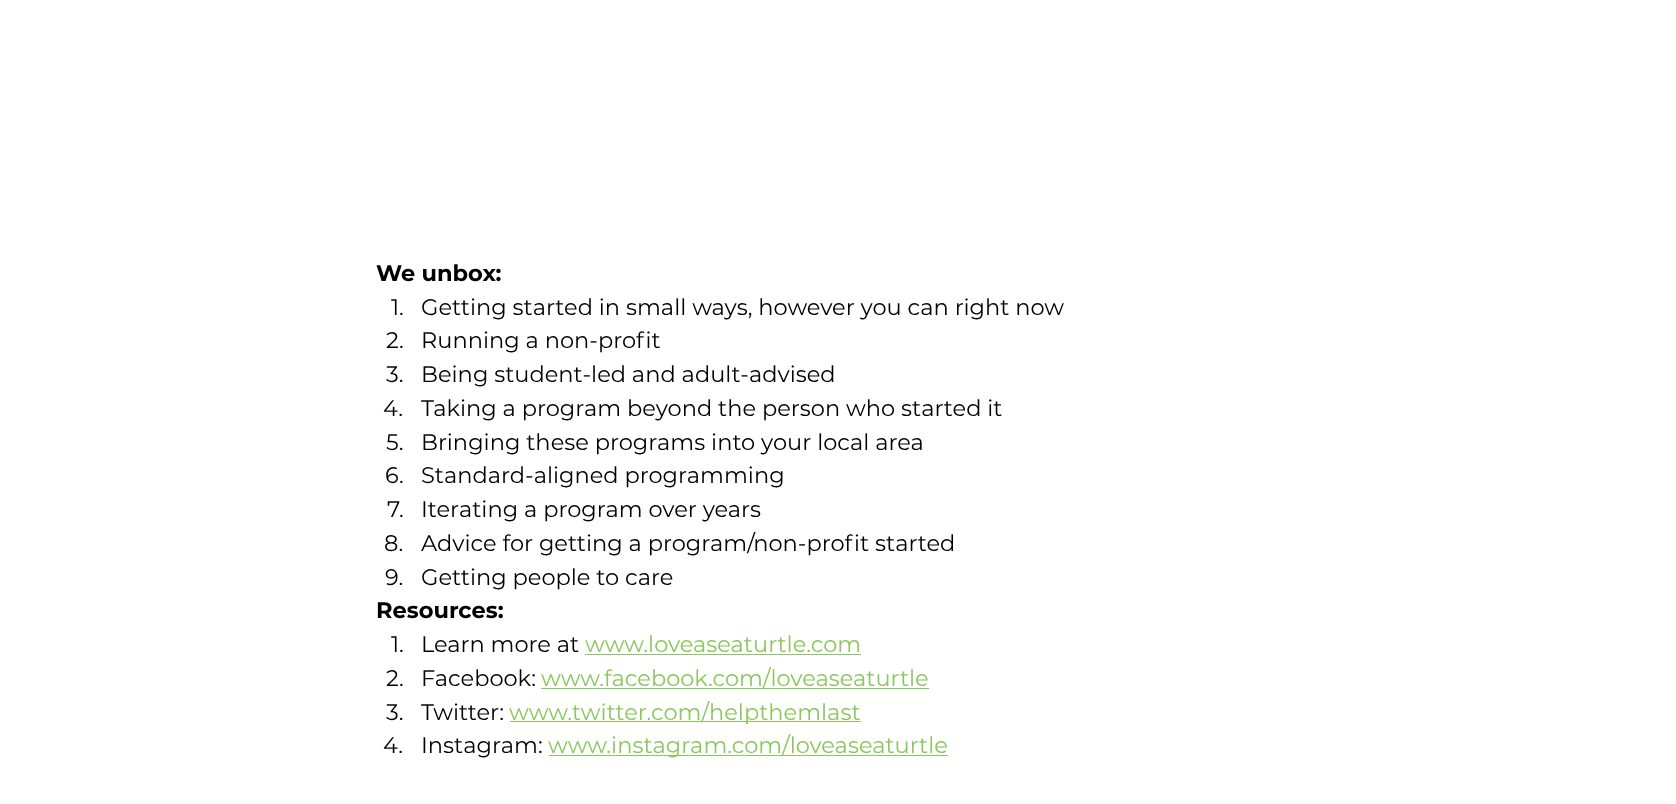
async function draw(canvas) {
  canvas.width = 1676
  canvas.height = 804
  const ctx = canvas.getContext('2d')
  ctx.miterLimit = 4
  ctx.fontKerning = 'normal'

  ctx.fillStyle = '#fff'
  ctx.fillRect(0, 0, 1676, 804)
  ctx.font = 'bold 22.5px Montserrat'
  ctx.fillStyle = '#000'
  ctx.fillText('We unbox:', 376, 281)
  ctx.font = '22.5px Montserrat'
  ctx.fillText('1.', 391, 315)
  ctx.fillText('Getting started in small ways, however you can right now', 421, 315)
  ctx.fillText('2.', 386, 348)
  ctx.fillText('Running a non-profit', 421, 348)
  ctx.fillText('3.', 386, 382)
  ctx.fillText('Being student-led and adult-advised', 421, 382)
  ctx.fillText('4.', 383, 416)
  ctx.fillText('Taking a program beyond the person who started it', 421, 416)
  ctx.fillText('5.', 386, 450)
  ctx.fillText('Bringing these programs into your local area', 421, 450)
  ctx.fillText('6.', 385, 483)
  ctx.fillText('Standard-aligned programming', 421, 483)
  ctx.fillText('7.', 387, 517)
  ctx.fillText('Iterating a program over years', 421, 517)
  ctx.fillText('8.', 384, 551)
  ctx.fillText('Advice for getting a program/non-profit started', 421, 551)
  ctx.fillText('9.', 385, 585)
  ctx.fillText('Getting people to care', 421, 585)
  ctx.font = 'bold 22.5px Montserrat'
  ctx.fillText('Resources:', 376, 618)
  ctx.font = '22.5px Montserrat'
  ctx.fillText('1.', 391, 652)
  ctx.fillText('Learn more at', 421, 652)
  ctx.fillStyle = '#8ac75c'
  ctx.fillText('www.loveaseaturtle.com', 585, 652)
  ctx.fillRect(585, 654, 276, 1)
  ctx.fillStyle = '#000'
  ctx.fillText('2.', 386, 686)
  ctx.fillText('Facebook:', 421, 686)
  ctx.fillStyle = '#8ac75c'
  ctx.fillRect(541, 688, 388, 1)
  ctx.fillText('www.facebook.com/loveaseaturtle', 541, 686)
  ctx.fillStyle = '#000'
  ctx.fillText('3.', 386, 720)
  ctx.fillText('Twitter:', 421, 720)
  ctx.fillStyle = '#8ac75c'
  ctx.fillRect(510, 721, 351, 1)
  ctx.fillText('www.twitter.com/helpthemlast', 509, 720)
  ctx.fillStyle = '#000'
  ctx.fillText('4.', 383, 753)
  ctx.fillText('Instagram:', 421, 753)
  ctx.fillStyle = '#8ac75c'
  ctx.fillRect(549, 755, 399, 1)
  ctx.fillText('www.instagram.com/loveaseaturtle', 548, 753)
}

draw(document.querySelector('canvas'))
